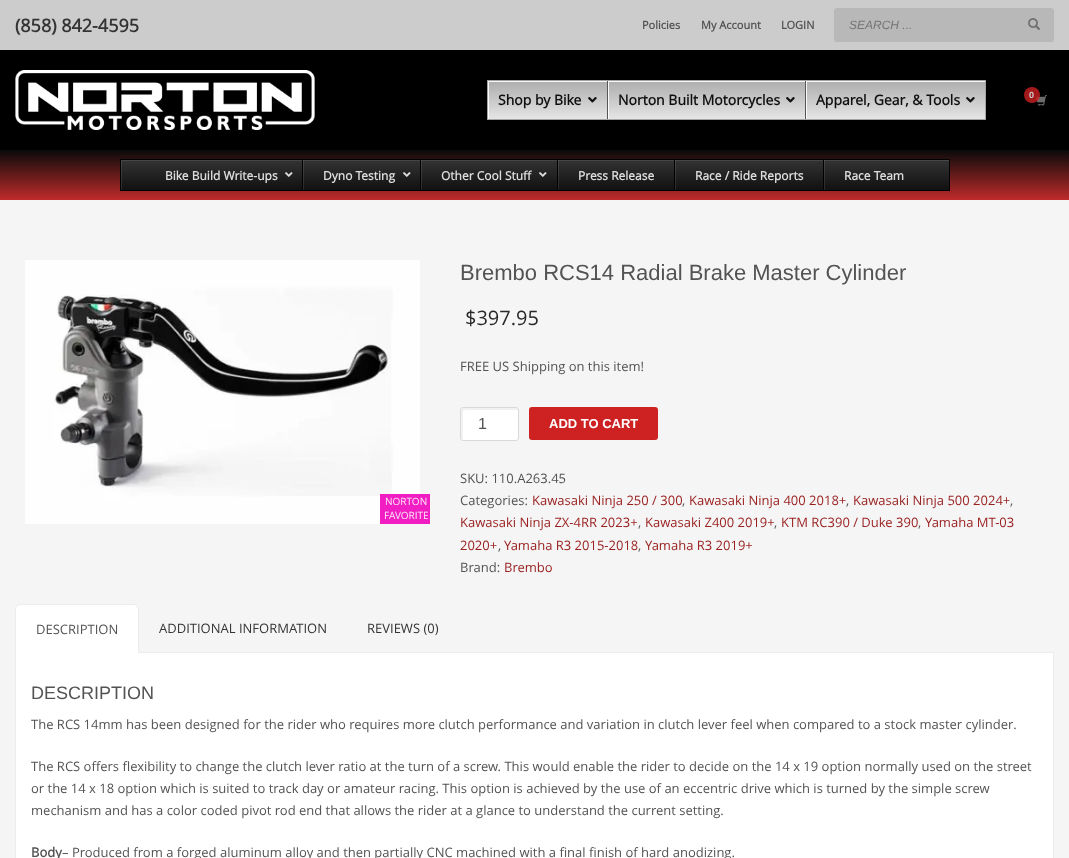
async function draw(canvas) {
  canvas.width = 1069
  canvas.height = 858
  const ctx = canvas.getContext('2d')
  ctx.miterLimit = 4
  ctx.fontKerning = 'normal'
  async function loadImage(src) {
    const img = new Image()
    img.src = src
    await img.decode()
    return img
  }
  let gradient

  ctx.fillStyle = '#f5f5f5'
  ctx.fillRect(0, 0, 1069, 858)
  ctx.fillStyle = '#000'
  ctx.fillRect(0, 50, 1069, 100)
  ctx.fillStyle = '#ccc'
  ctx.fillRect(0, 0, 1069, 50)
  ctx.font = 'bold 18px Open Sans'
  ctx.fillStyle = '#343434'
  ctx.fillText('(858) 842-4595', 15, 32)
  ctx.font = 'bold 11px Open Sans'
  ctx.fillStyle = '#535353'
  ctx.fillText('Policies', 642, 29)
  ctx.fillText('My Account', 701, 29)
  ctx.fillText('LOGIN', 781, 29)
  ctx.fillStyle = '#b8b8b8'
  ctx.beginPath()
  ctx.roundRect(834, 8, 220, 34, 3)
  ctx.fill()
  ctx.font = 'italic 12px Liberation Sans'
  ctx.fillStyle = '#757575'
  ctx.fillText('SEARCH ...', 849, 29)
  ctx.drawImage(await loadImage('image0.png'), 1028, 18, 12, 12)
  ctx.drawImage(await loadImage('image1.png'), 15, 70, 300, 60)
  gradient = ctx.createLinearGradient(737, 81, 737, 119)
  gradient.addColorStop(0, '#adadad')
  gradient.addColorStop(1, '#e5e5e5')
  ctx.fillStyle = gradient
  ctx.fillRect(488, 81, 497, 38)
  ctx.save()
  ctx.beginPath()
  ctx.rect(488, 81, 497, 38)
  ctx.clip()
  ctx.fillStyle = '#ffffffe6'
  ctx.beginPath()
  ctx.moveTo(389, -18)
  ctx.lineTo(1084, -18)
  ctx.lineTo(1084, 218)
  ctx.lineTo(389, 218)
  ctx.closePath()
  ctx.moveTo(489, 82)
  ctx.lineTo(986, 82)
  ctx.lineTo(986, 120)
  ctx.lineTo(489, 120)
  ctx.closePath()
  ctx.fill('evenodd')
  ctx.restore()
  ctx.strokeStyle = '#a3a3a3'
  ctx.strokeRect(487.5, 80.5, 498, 39)
  ctx.font = 'bold 14px Open Sans'
  ctx.fillStyle = '#0f0f0f'
  ctx.fillText('Shop by Bike', 498, 105)
  ctx.drawImage(await loadImage('image2.png'), 588, 97, 9, 6)
  ctx.fillStyle = '#ffffffe6'
  ctx.fillRect(608, 81, 1, 38)
  ctx.fillStyle = '#565656'
  ctx.fillRect(607, 81, 1, 38)
  ctx.fillStyle = '#0f0f0f'
  ctx.fillText('Norton Built Motorcycles', 618, 105)
  ctx.drawImage(await loadImage('image2.png'), 786, 97, 9, 6)
  ctx.fillStyle = '#ffffffe6'
  ctx.fillRect(806, 81, 1, 38)
  ctx.fillStyle = '#565656'
  ctx.fillRect(805, 81, 1, 38)
  ctx.fillStyle = '#0f0f0f'
  ctx.fillText('Apparel, Gear, & Tools', 816, 105)
  ctx.drawImage(await loadImage('image2.png'), 966, 97, 9, 6)
  ctx.drawImage(await loadImage('image3.png'), 1036, 95, 11, 11)
  ctx.fillStyle = '#cd2122cc'
  ctx.beginPath()
  ctx.arc(1032, 95, 8, 0, 2 * Math.PI)
  ctx.fill()
  ctx.font = 'bold 9px Liberation Sans'
  ctx.fillStyle = '#ccc'
  ctx.fillText('0', 1029, 98)
  gradient = ctx.createLinearGradient(535, 150, 535, 200)
  gradient.addColorStop(0, '#0a0a0a')
  gradient.addColorStop(1, '#bf2b2b')
  ctx.fillStyle = gradient
  ctx.fillRect(0, 150, 1069, 50)
  gradient = ctx.createLinearGradient(535, 160, 535, 190)
  gradient.addColorStop(0, '#333')
  gradient.addColorStop(1, '#111')
  ctx.fillStyle = gradient
  ctx.fillRect(121, 160, 828, 30)
  ctx.save()
  ctx.beginPath()
  ctx.rect(121, 160, 828, 30)
  ctx.clip()
  ctx.fillStyle = '#ffffff1a'
  ctx.beginPath()
  ctx.moveTo(22, 61)
  ctx.lineTo(1048, 61)
  ctx.lineTo(1048, 289)
  ctx.lineTo(22, 289)
  ctx.closePath()
  ctx.moveTo(122, 161)
  ctx.lineTo(950, 161)
  ctx.lineTo(950, 191)
  ctx.lineTo(122, 191)
  ctx.closePath()
  ctx.fill('evenodd')
  ctx.restore()
  ctx.strokeStyle = '#000'
  ctx.strokeRect(120.5, 159.5, 829, 31)
  ctx.font = 'bold 12px Open Sans'
  ctx.fillStyle = '#ddd'
  ctx.fillText('Bike Build Write-ups', 165, 180)
  ctx.drawImage(await loadImage('image4.png'), 285, 172, 8, 5)
  ctx.fillStyle = '#ffffff1a'
  ctx.fillRect(303, 160, 1, 30)
  ctx.fillStyle = '#000'
  ctx.fillRect(302, 160, 1, 30)
  ctx.fillStyle = '#ddd'
  ctx.fillText('Dyno Testing', 323, 180)
  ctx.drawImage(await loadImage('image4.png'), 403, 172, 8, 5)
  ctx.fillStyle = '#ffffff1a'
  ctx.fillRect(421, 160, 1, 30)
  ctx.fillStyle = '#000'
  ctx.fillRect(420, 160, 1, 30)
  ctx.fillStyle = '#ddd'
  ctx.fillText('Other Cool Stuff', 441, 180)
  ctx.drawImage(await loadImage('image4.png'), 539, 172, 8, 5)
  ctx.fillStyle = '#ffffff1a'
  ctx.fillRect(558, 160, 1, 30)
  ctx.fillStyle = '#000'
  ctx.fillRect(557, 160, 1, 30)
  ctx.fillStyle = '#ddd'
  ctx.fillText('Press Release', 578, 180)
  ctx.fillStyle = '#ffffff1a'
  ctx.fillRect(675, 160, 1, 30)
  ctx.fillStyle = '#000'
  ctx.fillRect(674, 160, 1, 30)
  ctx.fillStyle = '#ddd'
  ctx.fillText('Race / Ride Reports', 695, 180)
  ctx.fillStyle = '#ffffff1a'
  ctx.fillRect(824, 160, 1, 30)
  ctx.fillStyle = '#000'
  ctx.fillRect(823, 160, 1, 30)
  ctx.fillStyle = '#ddd'
  ctx.fillText('Race Team', 844, 180)
  ctx.drawImage(await loadImage('image5.png'), 25, 260, 395, 264)
  ctx.fillStyle = '#ef07bde6'
  ctx.fillRect(380, 494, 50, 30)
  ctx.font = '10px Open Sans'
  ctx.fillStyle = '#fee9f9'
  ctx.fillText('NORTON', 385, 505)
  ctx.fillText('FAVORITE', 384, 519)
  ctx.font = '22px Liberation Sans'
  ctx.fillStyle = '#535353'
  ctx.fillText('Brembo RCS14 Radial Brake Master Cylinder', 460, 280)
  ctx.font = '20px Open Sans'
  ctx.fillStyle = '#282828'
  ctx.fillText('$397.95', 465, 325)
  ctx.font = '13px Open Sans'
  ctx.fillStyle = '#535353'
  ctx.fillText('FREE US Shipping on this item!', 460, 371)
  ctx.fillStyle = '#fff'
  ctx.beginPath()
  ctx.roundRect(460, 407, 59, 34, 3)
  ctx.fill()
  ctx.fillStyle = '#f2f2f2'
  ctx.beginPath()
  ctx.moveTo(465, 410)
  ctx.lineTo(518, 410)
  ctx.bezierCurveTo(518, 409, 517, 408, 516, 408)
  ctx.lineTo(463, 408)
  ctx.bezierCurveTo(462, 408, 461, 409, 461, 410)
  ctx.lineTo(461, 438)
  ctx.bezierCurveTo(461, 439, 462, 440, 463, 440)
  ctx.lineTo(463, 412)
  ctx.bezierCurveTo(463, 411, 464, 410, 465, 410)
  ctx.closePath()
  ctx.fill()
  ctx.beginPath()
  ctx.roundRect(460.5, 407.5, 58, 33, 2.5)
  ctx.strokeStyle = '#d9d9d9'
  ctx.stroke()
  ctx.font = '16px Liberation Sans'
  ctx.fillStyle = '#535353'
  ctx.fillText('1', 478, 429)
  ctx.fillStyle = '#cd2122'
  ctx.beginPath()
  ctx.roundRect(529, 407, 129, 33, 3)
  ctx.fill()
  ctx.font = 'bold 13px Liberation Sans'
  ctx.fillStyle = '#fff'
  ctx.fillText('ADD TO CART', 549, 428)
  ctx.font = '13px Open Sans'
  ctx.fillStyle = '#535353'
  ctx.fillText('SKU: 110.A263.45', 460, 483)
  ctx.fillText('Categories:', 460, 505)
  ctx.fillStyle = '#991e1e'
  ctx.fillText('Kawasaki Ninja 250 / 300', 532, 505)
  ctx.fillStyle = '#535353'
  ctx.fillText(',', 682, 505)
  ctx.fillStyle = '#991e1e'
  ctx.fillText('Kawasaki Ninja 400 2018+', 689, 505)
  ctx.fillStyle = '#535353'
  ctx.fillText(',', 846, 505)
  ctx.fillStyle = '#991e1e'
  ctx.fillText('Kawasaki Ninja 500 2024+', 853, 505)
  ctx.fillStyle = '#535353'
  ctx.fillText(',', 1010, 505)
  ctx.fillStyle = '#991e1e'
  ctx.fillText('Kawasaki Ninja ZX-4RR 2023+', 460, 527)
  ctx.fillStyle = '#535353'
  ctx.fillText(',', 638, 527)
  ctx.fillStyle = '#991e1e'
  ctx.fillText('Kawasaki Z400 2019+', 645, 527)
  ctx.fillStyle = '#535353'
  ctx.fillText(',', 774, 527)
  ctx.fillStyle = '#991e1e'
  ctx.fillText('KTM RC390 / Duke 390', 781, 527)
  ctx.fillStyle = '#535353'
  ctx.fillText(',', 918, 527)
  ctx.fillStyle = '#991e1e'
  ctx.fillText('Yamaha MT-03', 925, 527)
  ctx.fillText('2020+', 460, 550)
  ctx.fillStyle = '#535353'
  ctx.fillText(',', 498, 550)
  ctx.fillStyle = '#991e1e'
  ctx.fillText('Yamaha R3 2015-2018', 504, 550)
  ctx.fillStyle = '#535353'
  ctx.fillText(',', 638, 550)
  ctx.fillStyle = '#991e1e'
  ctx.fillText('Yamaha R3 2019+', 645, 550)
  ctx.fillStyle = '#535353'
  ctx.fillText('Brand:', 460, 572)
  ctx.fillStyle = '#991e1e'
  ctx.fillText('Brembo', 504, 572)
  ctx.fillStyle = '#fff'
  ctx.beginPath()
  ctx.rect(15.5, 652.5, 1038, 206)
  ctx.fill()
  ctx.strokeStyle = '#ececec'
  ctx.stroke()
  ctx.beginPath()
  ctx.roundRect(15, 604, 124, 49, [4, 4, 0, 0])
  ctx.fill()
  ctx.fillStyle = '#ececec'
  ctx.beginPath()
  ctx.moveTo(20, 604)
  ctx.lineTo(134, 604)
  ctx.bezierCurveTo(137, 604, 139, 606, 139, 609)
  ctx.lineTo(139, 653)
  ctx.lineTo(15, 653)
  ctx.lineTo(15, 609)
  ctx.bezierCurveTo(15, 606, 17, 604, 20, 604)
  ctx.closePath()
  ctx.moveTo(20, 605)
  ctx.lineTo(134, 605)
  ctx.bezierCurveTo(136, 605, 138, 607, 138, 609)
  ctx.lineTo(138, 653)
  ctx.lineTo(16, 653)
  ctx.lineTo(16, 609)
  ctx.bezierCurveTo(16, 607, 18, 605, 20, 605)
  ctx.closePath()
  ctx.fill('evenodd')
  ctx.fillStyle = '#535353'
  ctx.fillText('DESCRIPTION', 36, 634)
  ctx.fillStyle = '#343434'
  ctx.fillText('ADDITIONAL INFORMATION', 159, 633)
  ctx.fillText('REVIEWS (0)', 367, 633)
  ctx.font = '18px Liberation Sans'
  ctx.fillStyle = '#535353'
  ctx.fillText('DESCRIPTION', 31, 699)
  ctx.font = '13px Open Sans'
  ctx.fillText('The RCS 14mm has been designed for the rider who requires more clutch performance and variation in clutch lever feel when compared to a stock master cylinder.', 31, 729)
  ctx.fillText('The RCS offers flexibility to change the clutch lever ratio at the turn of a screw. This would enable the rider to decide on the 14 x 19 option normally used on the street', 31, 771)
  ctx.fillText('or the 14 x 18 option which is suited to track day or amateur racing. This option is achieved by the use of an eccentric drive which is turned by the simple screw', 31, 793)
  ctx.fillText('mechanism and has a color coded pivot rod end that allows the rider at a glance to understand the current setting.', 31, 815)
  ctx.font = 'bold 13px Open Sans'
  ctx.fillText('Body', 31, 857)
  ctx.font = '13px Open Sans'
  ctx.fillText('– Produced from a forged aluminum alloy and then partially CNC machined with a final finish of hard anodizing.', 62, 857)
}

draw(document.querySelector('canvas'))
